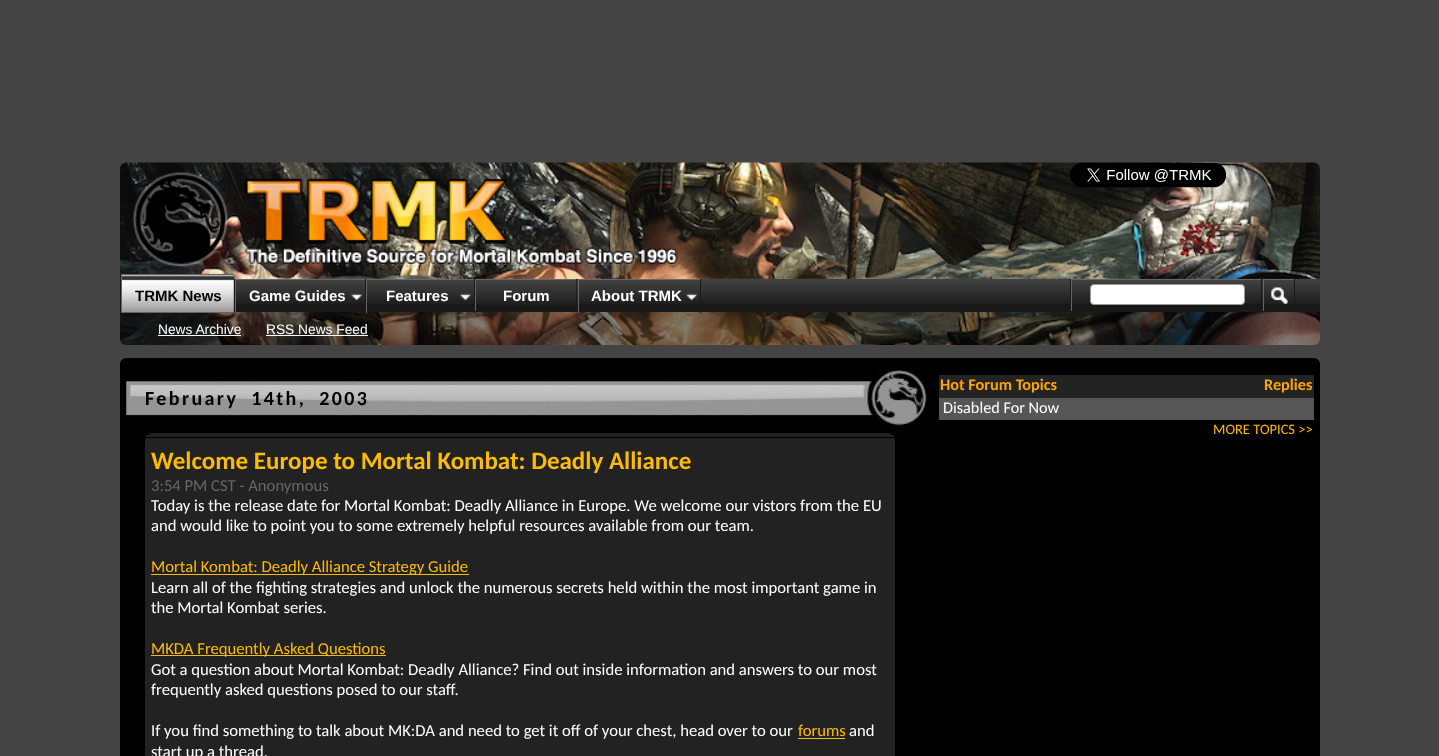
async function draw(canvas) {
  canvas.width = 1439
  canvas.height = 756
  const ctx = canvas.getContext('2d')
  ctx.miterLimit = 4
  ctx.fontKerning = 'normal'
  async function loadImage(src) {
    const img = new Image()
    img.src = src
    await img.decode()
    return img
  }

  ctx.fillStyle = '#444'
  ctx.fillRect(0, 0, 1439, 756)
  ctx.drawImage(await loadImage('image0.png'), 120, 162, 1200, 183)
  ctx.drawImage(await loadImage('image1.png'), 132, 172, 546, 95)
  ctx.drawImage(await loadImage('image2.png'), 1070, 162, 157, 26)
  ctx.fillStyle = '#2c2d2d'
  ctx.beginPath()
  ctx.roundRect(120, 279, 1200, 66, [0, 0, 6, 6])
  ctx.fill()
  ctx.fillStyle = '#181818'
  ctx.fillRect(236, 279, 1084, 32)
  ctx.drawImage(await loadImage('image3.png'), 120, 278, 1200, 26)
  ctx.fillRect(234, 279, 1, 32)
  ctx.fillRect(120, 279, 1, 32)
  ctx.fillRect(576, 279, 1, 34)
  ctx.fillStyle = '#666'
  ctx.fillRect(475, 279, 101, 1)
  ctx.fillRect(475, 279, 1, 34)
  ctx.drawImage(await loadImage('image5.png'), 120, 312, 1200, 33)
  ctx.fillStyle = '#181818'
  ctx.fillRect(120, 311, 1200, 1)
  ctx.fillStyle = '#333'
  ctx.fillRect(122, 275, 112, 38)
  ctx.drawImage(await loadImage('image4.png'), 122, 275, 112, 38)
  ctx.fillStyle = '#666'
  ctx.fillRect(121, 274, 113, 1)
  ctx.fillRect(121, 274, 1, 39)
  ctx.font = 'bold 15px Liberation Sans'
  ctx.fillStyle = '#000'
  ctx.fillText('TRMK News', 135, 301)
  ctx.font = '13.75px Liberation Sans'
  ctx.fillStyle = '#fff'
  ctx.fillText('News Archive', 158, 334)
  ctx.fillRect(158, 335, 83, 1)
  ctx.fillText('RSS News Feed', 266, 334)
  ctx.fillRect(266, 335, 102, 1)
  ctx.fillStyle = '#181818'
  ctx.fillRect(365, 279, 1, 34)
  ctx.drawImage(await loadImage('image6.png'), 351, 293, 12, 8)
  ctx.fillStyle = '#666'
  ctx.fillRect(235, 279, 130, 1)
  ctx.fillRect(235, 279, 1, 34)
  ctx.font = 'bold 15px Liberation Sans'
  ctx.fillStyle = '#fff'
  ctx.fillText('Game Guides', 249, 301)
  ctx.fillStyle = '#181818'
  ctx.fillRect(474, 279, 1, 34)
  ctx.drawImage(await loadImage('image7.png'), 460, 293, 12, 8)
  ctx.fillStyle = '#666'
  ctx.fillRect(366, 279, 108, 1)
  ctx.fillRect(366, 279, 1, 34)
  ctx.fillStyle = '#fff'
  ctx.fillText('Features', 386, 301)
  ctx.fillStyle = '#181818'
  ctx.fillRect(476, 280, 100, 24)
  ctx.drawImage(await loadImage('image8.png'), 476, 280, 101, 25)
  ctx.fillStyle = '#fff'
  ctx.fillText('Forum', 503, 301)
  ctx.fillStyle = '#181818'
  ctx.fillRect(700, 279, 1, 34)
  ctx.drawImage(await loadImage('image6.png'), 686, 293, 12, 8)
  ctx.fillStyle = '#666'
  ctx.fillRect(578, 279, 122, 1)
  ctx.fillRect(578, 279, 1, 34)
  ctx.fillStyle = '#fff'
  ctx.fillText('About TRMK', 591, 301)
  ctx.fillStyle = '#181818'
  ctx.fillRect(1070, 279, 1, 32)
  ctx.fillStyle = '#666'
  ctx.fillRect(1071, 279, 190, 1)
  ctx.fillRect(1071, 279, 1, 32)
  ctx.fillStyle = '#fff'
  ctx.beginPath()
  ctx.roundRect(1090.5, 284.5, 154, 20, 3.5)
  ctx.fill()
  ctx.strokeStyle = '#999'
  ctx.stroke()
  ctx.fillStyle = '#181818'
  ctx.fillRect(1294, 279, 1, 32)
  ctx.fillRect(1261, 279, 1, 32)
  ctx.fillStyle = '#666'
  ctx.fillRect(1263, 279, 31, 1)
  ctx.fillRect(1263, 279, 1, 32)
  ctx.drawImage(await loadImage('image9.png'), 1271, 287, 17, 18)
  ctx.fillStyle = '#000'
  ctx.beginPath()
  ctx.roundRect(120, 358, 1200, 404, 6)
  ctx.fill()
  ctx.drawImage(await loadImage('image10.png'), 126, 370, 801, 56)
  ctx.letterSpacing = '2.4px'
  ctx.wordSpacing = '6px'
  ctx.font = 'bold 20px Carlito'
  ctx.fillText('February 14th, 2003', 145, 405)
  ctx.fillStyle = '#190100'
  ctx.fillRect(149, 433, 742, 1)
  ctx.fillStyle = '#090000'
  ctx.fillRect(890, 433, 1, 1)
  ctx.fillStyle = '#0e0000'
  ctx.fillRect(149, 433, 1, 1)
  ctx.fillStyle = '#222'
  ctx.fillRect(151, 433, 738, 1)
  ctx.fillStyle = '#1b0100'
  ctx.fillRect(146, 434, 748, 1)
  ctx.fillStyle = '#020000'
  ctx.fillRect(893, 434, 1, 1)
  ctx.fillStyle = '#030000'
  ctx.fillRect(146, 434, 1, 1)
  ctx.fillStyle = '#222'
  ctx.fillRect(149, 434, 742, 1)
  ctx.fillRect(146, 435, 748, 1)
  ctx.fillStyle = '#120100'
  ctx.fillRect(893, 435, 1, 1)
  ctx.fillStyle = '#1b0100'
  ctx.fillRect(146, 435, 1, 1)
  ctx.fillStyle = '#222'
  ctx.fillRect(145, 436, 750, 1)
  ctx.fillStyle = '#090000'
  ctx.fillRect(894, 436, 1, 1)
  ctx.fillStyle = '#0e0000'
  ctx.fillRect(145, 436, 1, 1)
  ctx.fillStyle = '#222'
  ctx.fillRect(145, 438, 750, 318)
  ctx.fillStyle = '#110100'
  ctx.fillRect(894, 438, 1, 1)
  ctx.fillStyle = '#190100'
  ctx.fillRect(145, 438, 1, 1)
  ctx.letterSpacing = '0px'
  ctx.wordSpacing = '0px'
  ctx.font = 'bold 25px Carlito'
  ctx.fillStyle = '#fb0'
  ctx.fillText('Welcome Europe to Mortal Kombat: Deadly Alliance', 151, 469)
  ctx.font = '16.65px Carlito'
  ctx.fillStyle = '#666'
  ctx.fillText('3:54 PM CST - Anonymous', 151, 491)
  ctx.fillStyle = '#fff'
  ctx.fillText('Today is the release date for Mortal Kombat: Deadly Alliance in Europe. We welcome our vistors from the EU', 151, 511)
  ctx.fillText('and would like to point you to some extremely helpful resources available from our team.', 151, 531)
  ctx.fillStyle = '#fb0'
  ctx.fillRect(151, 574, 318, 1)
  ctx.fillText('Mortal Kombat: Deadly Alliance Strategy Guide', 151, 572)
  ctx.fillStyle = '#fff'
  ctx.fillText('Learn all of the fighting strategies and unlock the numerous secrets held within the most important game in', 151, 593)
  ctx.fillText('the Mortal Kombat series.', 151, 613)
  ctx.fillStyle = '#fb0'
  ctx.fillRect(151, 655, 235, 1)
  ctx.fillText('MKDA Frequently Asked Questions', 151, 654)
  ctx.fillStyle = '#fff'
  ctx.fillText('Got a question about Mortal Kombat: Deadly Alliance? Find out inside information and answers to our most', 151, 675)
  ctx.fillText('frequently asked questions posed to our staff.', 151, 695)
  ctx.fillText('If you find something to talk about MK:DA and need to get it off of your chest, head over to our', 151, 736)
  ctx.fillStyle = '#fb0'
  ctx.fillText('forums', 798, 736)
  ctx.fillRect(798, 738, 47, 1)
  ctx.fillStyle = '#fff'
  ctx.fillText('and', 849, 736)
  ctx.fillText('start up a thread.', 151, 757)
  ctx.fillStyle = '#232323'
  ctx.fillRect(939, 375, 375, 23)
  ctx.font = 'bold 16.25px Carlito'
  ctx.fillStyle = '#ffa500'
  ctx.fillText('Hot Forum Topics', 940, 390)
  ctx.fillText('Replies', 1264, 390)
  ctx.fillStyle = '#565656'
  ctx.fillRect(939, 398, 375, 22)
  ctx.font = '16.25px Carlito'
  ctx.fillStyle = '#fff'
  ctx.fillText('Disabled For Now', 943, 413)
  ctx.font = '14.5px Carlito'
  ctx.fillStyle = '#fb0'
  ctx.fillText('MORE TOPICS >>', 1213, 434)
}

draw(document.querySelector('canvas'))
